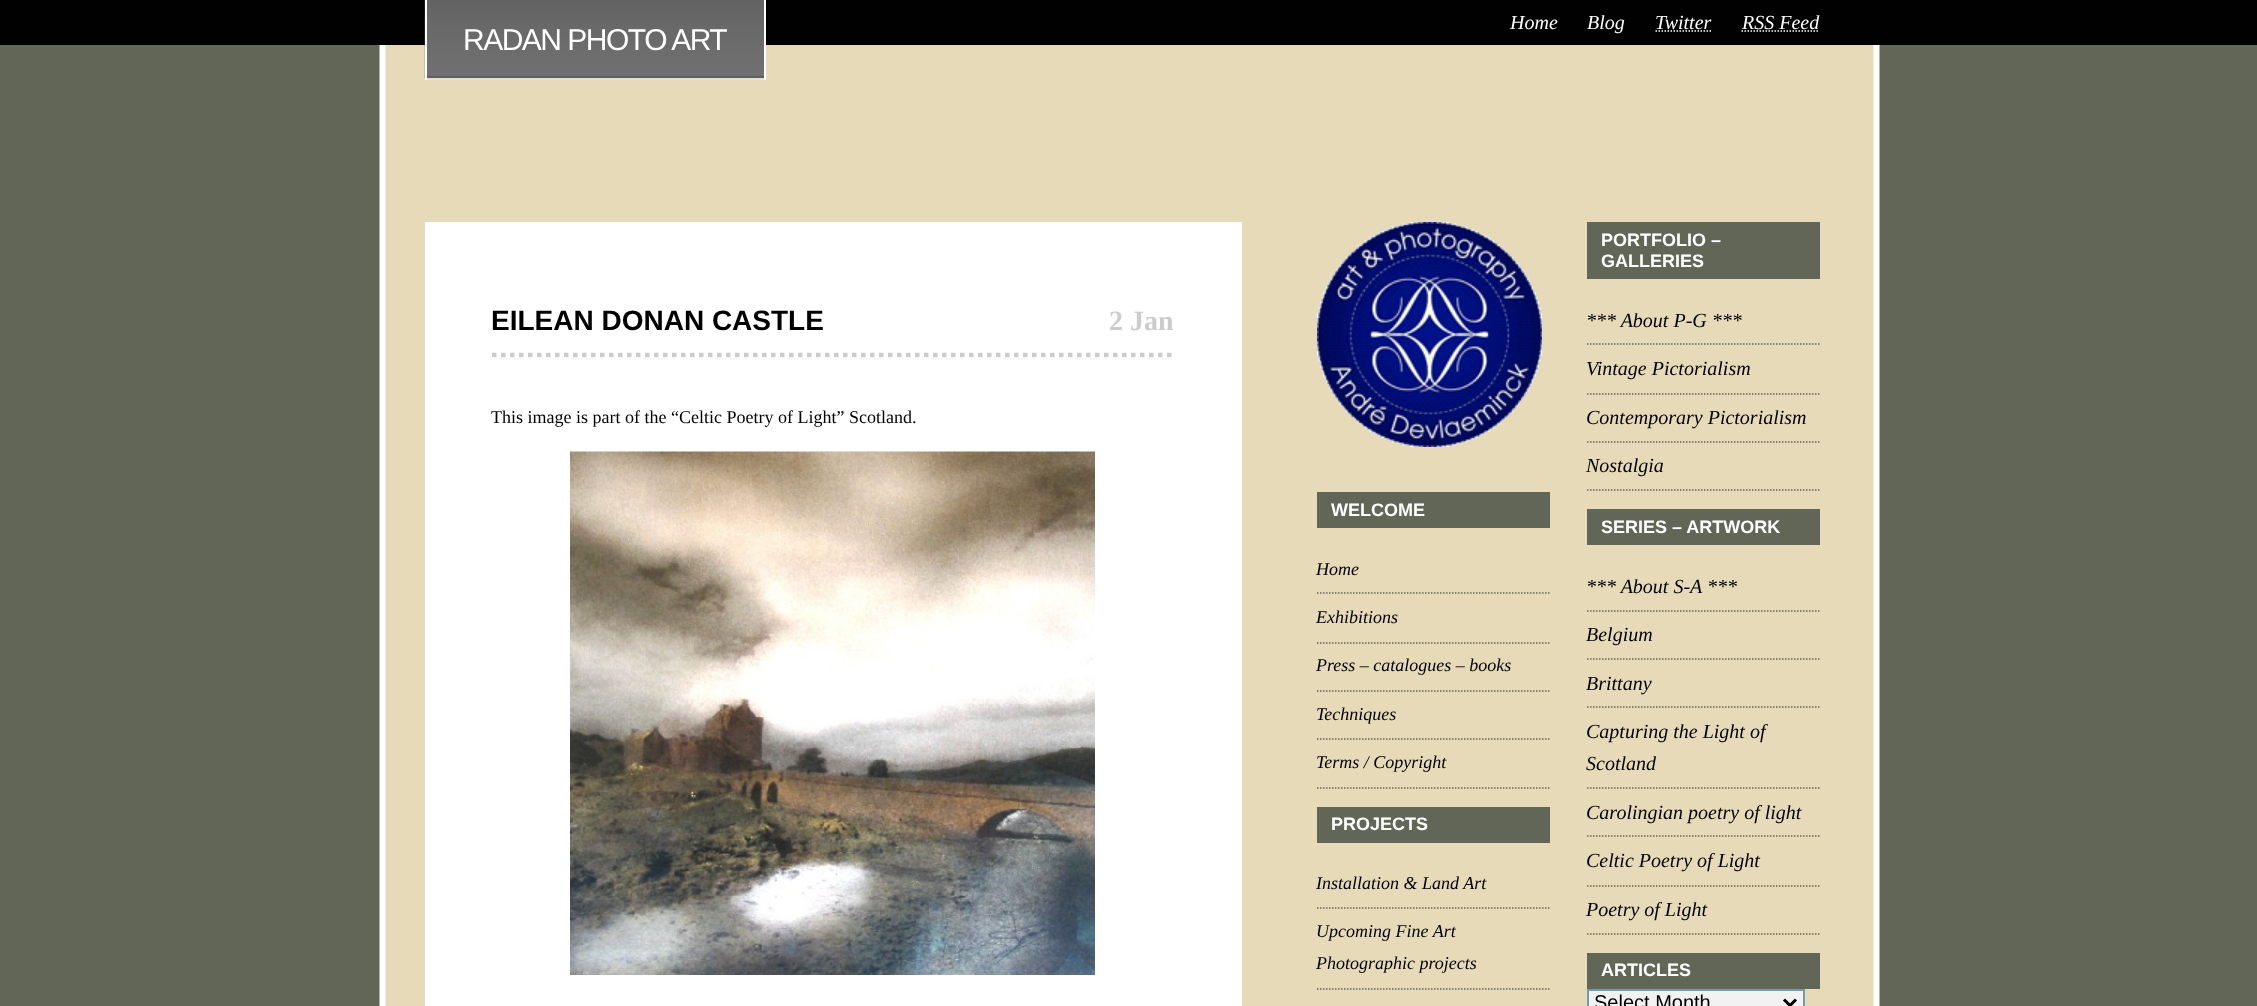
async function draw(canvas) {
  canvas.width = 2257
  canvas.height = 1006
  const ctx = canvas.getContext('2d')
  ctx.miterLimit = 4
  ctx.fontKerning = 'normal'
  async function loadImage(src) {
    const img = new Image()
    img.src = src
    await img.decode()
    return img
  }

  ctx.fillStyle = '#626657'
  ctx.fillRect(0, 0, 2257, 1006)
  ctx.drawImage(await loadImage('image0.png'), 379, 45, 1501, 961)
  ctx.fillStyle = '#010101'
  ctx.fillRect(0, 0, 2257, 45)
  ctx.font = 'italic 20px Liberation Serif'
  ctx.fillStyle = '#fff'
  ctx.fillText('Home', 1510, 29)
  ctx.fillText('Blog', 1587, 29)
  ctx.fillText('Twitter', 1655, 29)
  ctx.beginPath()
  ctx.moveTo(1655.5, 31)
  ctx.lineTo(1711.5, 31)
  ctx.strokeStyle = '#fff'
  ctx.lineWidth = 1.5
  ctx.setLineDash([1.5, 1.5])
  ctx.stroke()
  ctx.fillText('RSS Feed', 1742, 29)
  ctx.beginPath()
  ctx.moveTo(1741.5, 31)
  ctx.lineTo(1819, 31)
  ctx.stroke()
  ctx.drawImage(await loadImage('image1.png'), 424, 0, 340, 80)
  ctx.fillRect(764, 0, 2, 80)
  ctx.fillRect(425, 0, 2, 80)
  ctx.letterSpacing = '-1.5px'
  ctx.font = '30px Liberation Sans'
  ctx.fillText('RADAN PHOTO ART', 463, 50)
  ctx.fillRect(425, 222, 817, 784)
  ctx.beginPath()
  ctx.moveTo(492, 355)
  ctx.lineTo(1174.5, 355)
  ctx.strokeStyle = '#ccc'
  ctx.lineWidth = 4.5
  ctx.setLineDash([4.5, 4.5])
  ctx.stroke()
  ctx.letterSpacing = '0px'
  ctx.font = 'bold 28px Liberation Sans'
  ctx.fillStyle = '#000'
  ctx.fillText('EILEAN DONAN CASTLE', 491, 330)
  ctx.font = 'bold 28px Liberation Serif'
  ctx.fillStyle = '#ccc'
  ctx.fillText('2 Jan', 1109, 330)
  ctx.font = '18px Liberation Serif'
  ctx.fillStyle = '#000'
  ctx.fillText('This image is part of the “Celtic Poetry of Light” Scotland.', 491, 423)
  ctx.drawImage(await loadImage('image2.png'), 570, 451, 525, 524)
  ctx.drawImage(await loadImage('image3.png'), 1317, 222, 225, 225)
  ctx.fillStyle = '#626657'
  ctx.fillRect(1317, 492, 233, 36)
  ctx.font = 'bold 18px Liberation Sans'
  ctx.fillStyle = '#fff'
  ctx.fillText('WELCOME', 1331, 516)
  ctx.beginPath()
  ctx.moveTo(1317, 593)
  ctx.lineTo(1549.5, 593)
  ctx.strokeStyle = '#626657'
  ctx.lineWidth = 1.5
  ctx.setLineDash([1.5, 1.5])
  ctx.stroke()
  ctx.font = 'italic 18px Liberation Serif'
  ctx.fillStyle = '#000'
  ctx.fillText('Home', 1316, 575)
  ctx.beginPath()
  ctx.moveTo(1317, 643)
  ctx.lineTo(1549.5, 643)
  ctx.stroke()
  ctx.fillText('Exhibitions', 1316, 623)
  ctx.beginPath()
  ctx.moveTo(1317, 691)
  ctx.lineTo(1549.5, 691)
  ctx.stroke()
  ctx.fillText('Press – catalogues – books', 1316, 671)
  ctx.beginPath()
  ctx.moveTo(1317, 739)
  ctx.lineTo(1549.5, 739)
  ctx.stroke()
  ctx.fillText('Techniques', 1316, 720)
  ctx.beginPath()
  ctx.moveTo(1317, 788)
  ctx.lineTo(1549.5, 788)
  ctx.stroke()
  ctx.fillText('Terms / Copyright', 1316, 768)
  ctx.fillStyle = '#626657'
  ctx.fillRect(1317, 807, 233, 36)
  ctx.font = 'bold 18px Liberation Sans'
  ctx.fillStyle = '#fff'
  ctx.fillText('PROJECTS', 1331, 830)
  ctx.beginPath()
  ctx.moveTo(1317, 908)
  ctx.lineTo(1549.5, 908)
  ctx.stroke()
  ctx.font = 'italic 18px Liberation Serif'
  ctx.fillStyle = '#000'
  ctx.fillText('Installation & Land Art', 1316, 889)
  ctx.beginPath()
  ctx.moveTo(1317, 989)
  ctx.lineTo(1549.5, 989)
  ctx.stroke()
  ctx.fillText('Upcoming Fine Art', 1316, 937)
  ctx.fillText('Photographic projects', 1316, 969)
  ctx.fillStyle = '#626657'
  ctx.fillRect(1587, 222, 233, 57)
  ctx.font = 'bold 18px Liberation Sans'
  ctx.fillStyle = '#fff'
  ctx.fillText('PORTFOLIO –', 1601, 246)
  ctx.fillText('GALLERIES', 1601, 267)
  ctx.beginPath()
  ctx.moveTo(1587, 344)
  ctx.lineTo(1819.5, 344)
  ctx.stroke()
  ctx.font = 'italic 20px Liberation Serif'
  ctx.fillStyle = '#000'
  ctx.fillText('*** About P-G ***', 1586, 327)
  ctx.beginPath()
  ctx.moveTo(1587, 394)
  ctx.lineTo(1819.5, 394)
  ctx.stroke()
  ctx.fillText('Vintage Pictorialism', 1586, 375)
  ctx.beginPath()
  ctx.moveTo(1587, 442)
  ctx.lineTo(1819.5, 442)
  ctx.stroke()
  ctx.fillText('Contemporary Pictorialism', 1586, 424)
  ctx.beginPath()
  ctx.moveTo(1587, 490)
  ctx.lineTo(1819.5, 490)
  ctx.stroke()
  ctx.fillText('Nostalgia', 1586, 472)
  ctx.fillStyle = '#626657'
  ctx.fillRect(1587, 509, 233, 36)
  ctx.font = 'bold 18px Liberation Sans'
  ctx.fillStyle = '#fff'
  ctx.fillText('SERIES – ARTWORK', 1601, 533)
  ctx.beginPath()
  ctx.moveTo(1587, 611)
  ctx.lineTo(1819.5, 611)
  ctx.stroke()
  ctx.font = 'italic 20px Liberation Serif'
  ctx.fillStyle = '#000'
  ctx.fillText('*** About S-A ***', 1586, 593)
  ctx.beginPath()
  ctx.moveTo(1587, 659)
  ctx.lineTo(1819.5, 659)
  ctx.stroke()
  ctx.fillText('Belgium', 1586, 641)
  ctx.beginPath()
  ctx.moveTo(1587, 707)
  ctx.lineTo(1819.5, 707)
  ctx.stroke()
  ctx.fillText('Brittany', 1586, 690)
  ctx.beginPath()
  ctx.moveTo(1587, 788)
  ctx.lineTo(1819.5, 788)
  ctx.stroke()
  ctx.fillText('Capturing the Light of', 1586, 738)
  ctx.fillText('Scotland', 1586, 770)
  ctx.beginPath()
  ctx.moveTo(1587, 836)
  ctx.lineTo(1819.5, 836)
  ctx.stroke()
  ctx.fillText('Carolingian poetry of light', 1586, 819)
  ctx.beginPath()
  ctx.moveTo(1587, 886)
  ctx.lineTo(1819.5, 886)
  ctx.stroke()
  ctx.fillText('Celtic Poetry of Light', 1586, 867)
  ctx.beginPath()
  ctx.moveTo(1587, 934)
  ctx.lineTo(1819.5, 934)
  ctx.stroke()
  ctx.fillText('Poetry of Light', 1586, 916)
  ctx.fillStyle = '#626657'
  ctx.fillRect(1587, 953, 233, 36)
  ctx.font = 'bold 18px Liberation Sans'
  ctx.fillStyle = '#fff'
  ctx.fillText('ARTICLES', 1601, 976)
  ctx.fillStyle = '#f2f2f2'
  ctx.beginPath()
  ctx.rect(1588, 990, 216, 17)
  ctx.fill()
  ctx.strokeStyle = '#79a'
  ctx.lineWidth = 2
  ctx.setLineDash([])
  ctx.stroke()
  ctx.beginPath()
  ctx.moveTo(1784, 999.5)
  ctx.lineTo(1790, 1005.5)
  ctx.lineTo(1796, 999.5)
  ctx.strokeStyle = '#000'
  ctx.lineWidth = 3
  ctx.stroke()
  ctx.font = '20px Liberation Sans'
  ctx.fillStyle = '#000'
  ctx.fillText('Select Month', 1594, 1009)
}

draw(document.querySelector('canvas'))
